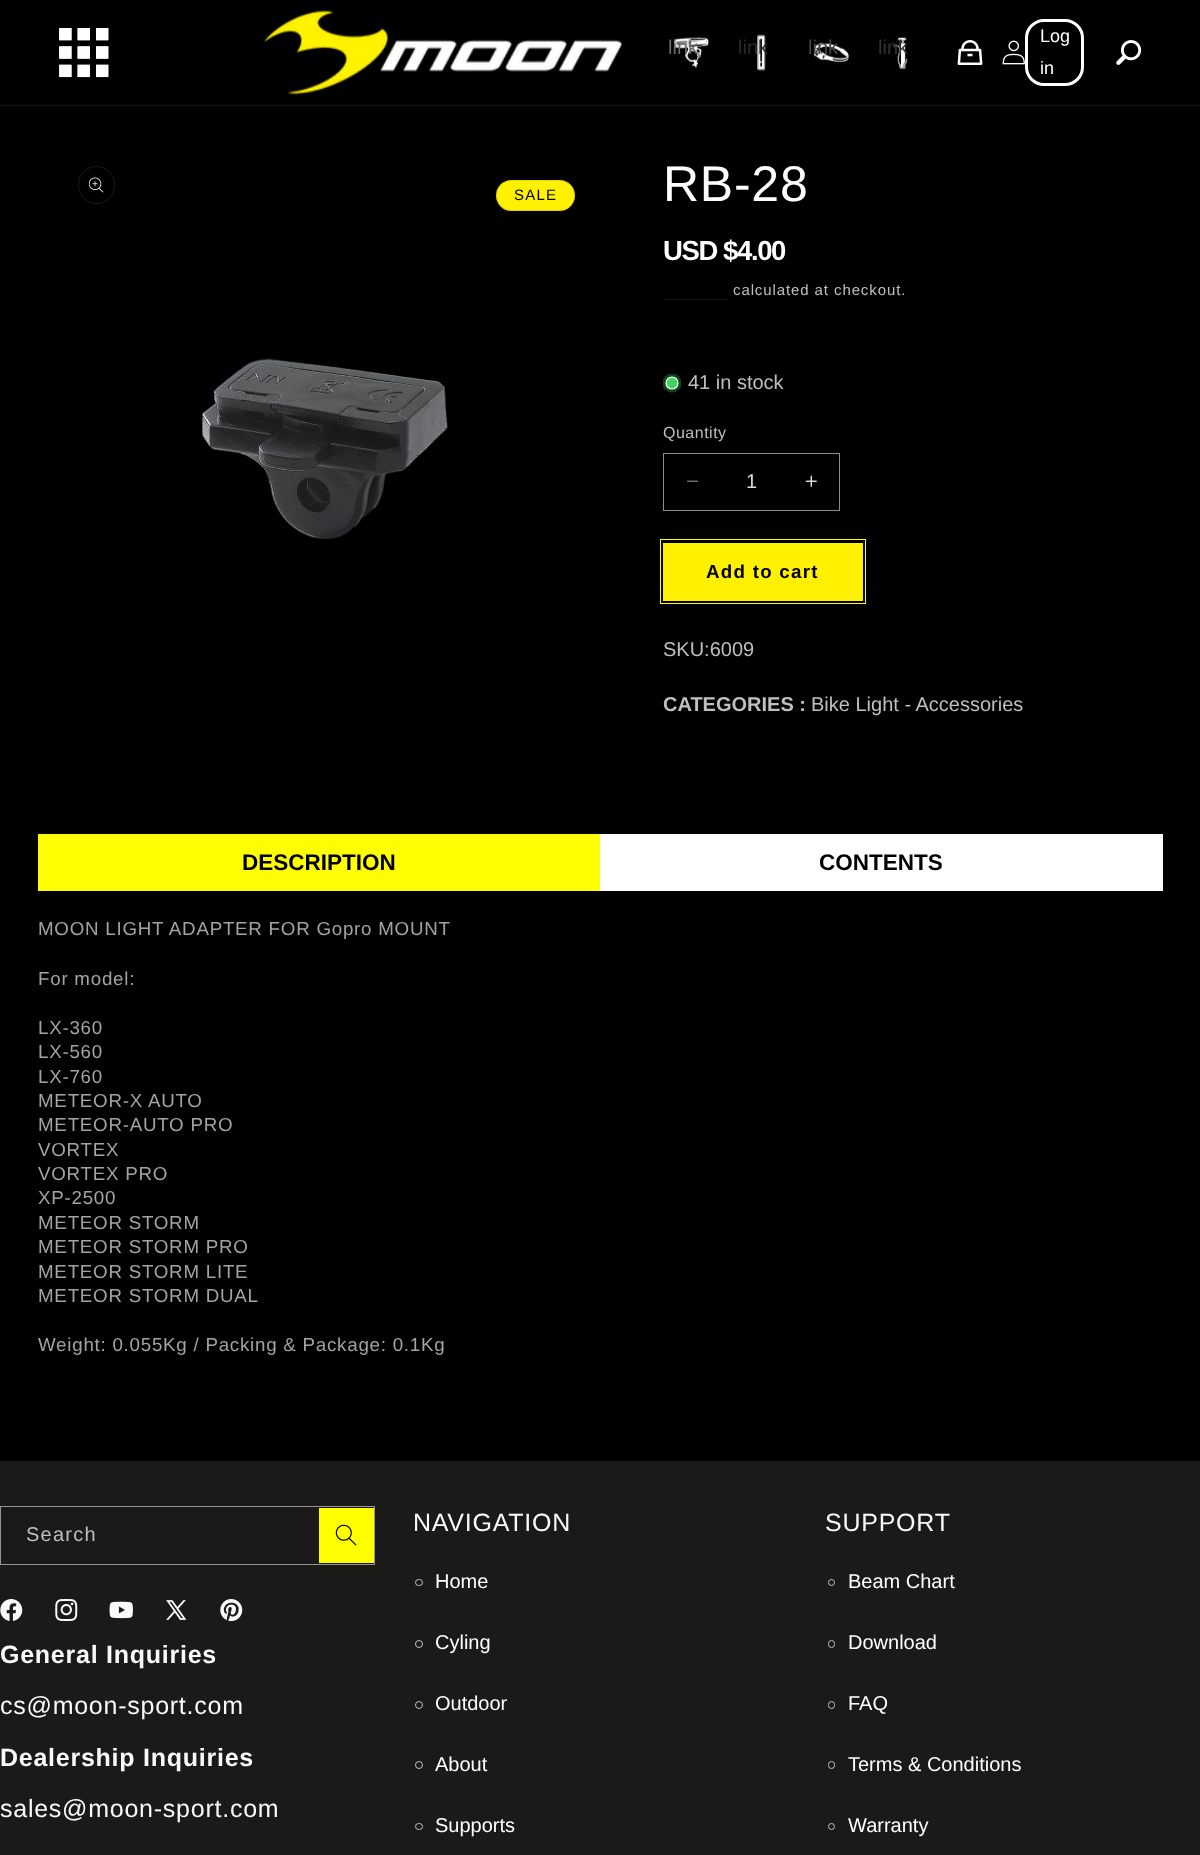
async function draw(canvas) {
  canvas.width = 1200
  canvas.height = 1855
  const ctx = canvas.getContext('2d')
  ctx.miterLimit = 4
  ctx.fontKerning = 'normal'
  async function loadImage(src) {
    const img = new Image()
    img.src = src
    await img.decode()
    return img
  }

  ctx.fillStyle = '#000'
  ctx.fillRect(0, 0, 1200, 1855)
  ctx.fillStyle = '#141414'
  ctx.fillRect(0, 105, 1200, 1)
  ctx.drawImage(await loadImage('image0.png'), 59, 28, 50, 50)
  ctx.drawImage(await loadImage('image1.png'), 59, 28, 50, 50)
  ctx.drawImage(await loadImage('image2.png'), 264, 10, 359, 85)
  ctx.drawImage(await loadImage('image3.png'), 673, 36, 36, 32)
  ctx.font = '20px Liberation Sans'
  ctx.fillStyle = '#696969'
  ctx.fillText('link', 668, 54)
  ctx.drawImage(await loadImage('image4.png'), 757, 34, 9, 37)
  ctx.fillStyle = '#2a2a2a'
  ctx.fillText('link', 738, 54)
  ctx.drawImage(await loadImage('image5.png'), 813, 42, 36, 21)
  ctx.fillStyle = '#454545'
  ctx.fillText('link', 808, 54)
  ctx.drawImage(await loadImage('image6.png'), 893, 37, 15, 32)
  ctx.fillStyle = '#313131'
  ctx.fillText('link', 878, 54)
  ctx.drawImage(await loadImage('image7.png'), 957, 40, 26, 25)
  ctx.drawImage(await loadImage('image8.png'), 1002, 40, 23, 25)
  ctx.beginPath()
  ctx.roundRect(1026.5, 20.5, 56, 64, 17.5)
  ctx.strokeStyle = '#fff'
  ctx.lineWidth = 3
  ctx.stroke()
  ctx.font = '18px Liberation Sans'
  ctx.fillStyle = '#fff'
  ctx.fillText('Log', 1040, 42)
  ctx.fillText('in', 1040, 74)
  ctx.drawImage(await loadImage('image9.png'), 1116, 40, 25, 25)
  ctx.beginPath()
  ctx.roundRect(78.5, 166.5, 36, 37, 18)
  ctx.strokeStyle = '#1a1a1a'
  ctx.lineWidth = 1
  ctx.stroke()
  ctx.drawImage(await loadImage('image10.png'), 89, 177, 15, 16)
  ctx.drawImage(await loadImage('image11.png'), 202, 358, 246, 182)
  ctx.fillStyle = '#fff100'
  ctx.beginPath()
  ctx.roundRect(496, 180, 79, 31, 15.5)
  ctx.fill()
  ctx.beginPath()
  ctx.roundRect(496.5, 180.5, 78, 30, 15)
  ctx.strokeStyle = '#0000001a'
  ctx.stroke()
  ctx.letterSpacing = '1.25px'
  ctx.font = '15px Liberation Sans'
  ctx.fillStyle = '#000'
  ctx.fillText('SALE', 514, 200)
  ctx.letterSpacing = '0.75px'
  ctx.font = '50px Liberation Sans'
  ctx.fillStyle = '#fff'
  ctx.fillText('RB-28', 663, 201)
  ctx.letterSpacing = '-1.4px'
  ctx.font = 'bold 27.5px Liberation Sans'
  ctx.fillText('USD $4.00', 663, 260)
  ctx.letterSpacing = '0.9px'
  ctx.font = '15px Liberation Sans'
  ctx.fillStyle = '#bfbfbf'
  ctx.fillText('calculated at checkout.', 733, 295)
  ctx.fillStyle = '#0f0f0f'
  ctx.fillRect(663, 299, 65, 1)
  ctx.save()
  ctx.beginPath()
  ctx.rect(663, 374, 18, 19)
  ctx.clip()
  ctx.fillStyle = '#13401d'
  ctx.beginPath()
  ctx.arc(672, 383, 9.5, 0, 2 * Math.PI)
  ctx.fill()
  ctx.restore()
  ctx.fillStyle = '#3ed660'
  ctx.beginPath()
  ctx.arc(672, 383, 6, 0, 2 * Math.PI)
  ctx.fill()
  ctx.strokeStyle = '#fff'
  ctx.lineWidth = 1.2
  ctx.stroke()
  ctx.letterSpacing = '0px'
  ctx.font = '20px Liberation Sans'
  ctx.fillStyle = '#bfbfbf'
  ctx.fillText('41 in stock', 688, 389)
  ctx.letterSpacing = '0.5px'
  ctx.font = '16px Liberation Sans'
  ctx.fillText('Quantity', 663, 438)
  ctx.drawImage(await loadImage('image12.png'), 687, 480, 11, 2)
  ctx.drawImage(await loadImage('image13.png'), 805, 475, 12, 12)
  ctx.strokeStyle = '#8c8c8c'
  ctx.lineWidth = 1
  ctx.strokeRect(663.5, 453.5, 176, 57)
  ctx.letterSpacing = '0px'
  ctx.font = '20px Liberation Sans'
  ctx.fillStyle = '#d9d9d9'
  ctx.fillText('1', 746, 488)
  ctx.fillStyle = '#fff100'
  ctx.fillRect(663, 543, 200, 58)
  ctx.strokeStyle = '#ff0'
  ctx.strokeRect(660.5, 539.5, 205, 64)
  ctx.letterSpacing = '1.25px'
  ctx.font = 'bold 18.75px Liberation Sans'
  ctx.fillStyle = '#000'
  ctx.fillText('Add to cart', 706, 578)
  ctx.letterSpacing = '0px'
  ctx.font = '20px Liberation Sans'
  ctx.fillStyle = '#bfbfbf'
  ctx.fillText('SKU:6009', 663, 656)
  ctx.font = 'bold 20px Liberation Sans'
  ctx.fillText('CATEGORIES :', 663, 711)
  ctx.font = '20px Liberation Sans'
  ctx.fillText('Bike Light - Accessories', 811, 711)
  ctx.fillStyle = '#ff0'
  ctx.fillRect(38, 834, 562, 57)
  ctx.font = 'bold 22.5px Liberation Sans'
  ctx.fillStyle = '#000'
  ctx.fillText('DESCRIPTION', 242, 870)
  ctx.fillStyle = '#fff'
  ctx.fillRect(600, 834, 563, 57)
  ctx.fillStyle = '#000'
  ctx.fillText('CONTENTS', 819, 870)
  ctx.letterSpacing = '0.75px'
  ctx.font = '18.75px Liberation Sans'
  ctx.fillStyle = '#a3a3a3'
  ctx.fillText('MOON LIGHT ADAPTER FOR Gopro MOUNT', 38, 935)
  ctx.fillText('For model:', 38, 985)
  ctx.fillText('LX-360', 38, 1034)
  ctx.fillText('LX-560', 38, 1058)
  ctx.fillText('LX-760', 38, 1083)
  ctx.fillText('METEOR-X AUTO', 38, 1107)
  ctx.fillText('METEOR-AUTO PRO', 38, 1131)
  ctx.fillText('VORTEX', 38, 1156)
  ctx.fillText('VORTEX PRO', 38, 1180)
  ctx.fillText('XP-2500', 38, 1204)
  ctx.fillText('METEOR STORM', 38, 1229)
  ctx.fillText('METEOR STORM PRO', 38, 1253)
  ctx.fillText('METEOR STORM LITE', 38, 1278)
  ctx.fillText('METEOR STORM DUAL', 38, 1302)
  ctx.fillText('Weight: 0.055Kg / Packing & Package: 0.1Kg', 38, 1351)
  ctx.fillStyle = '#1b1a18'
  ctx.fillRect(0, 1461, 1200, 394)
  ctx.fillStyle = '#ff0'
  ctx.fillRect(319, 1508, 55, 55)
  ctx.drawImage(await loadImage('image14.png'), 335, 1524, 22, 22)
  ctx.strokeStyle = '#959594'
  ctx.strokeRect(0.5, 1506.5, 374, 58)
  ctx.letterSpacing = '1.25px'
  ctx.font = '20px Liberation Sans'
  ctx.fillStyle = '#bfbfbf'
  ctx.fillText('Search', 26, 1541)
  ctx.drawImage(await loadImage('image15.png'), 0, 1599, 23, 22)
  ctx.drawImage(await loadImage('image16.png'), 55, 1599, 23, 22)
  ctx.drawImage(await loadImage('image17.png'), 109, 1601, 24, 18)
  ctx.drawImage(await loadImage('image18.png'), 166, 1600, 21, 20)
  ctx.drawImage(await loadImage('image19.png'), 220, 1599, 23, 23)
  ctx.letterSpacing = '0.75px'
  ctx.font = 'bold 25px Liberation Sans'
  ctx.fillStyle = '#f9f9f9'
  ctx.fillText('General Inquiries', 0, 1663)
  ctx.font = '25px Liberation Sans'
  ctx.fillText('cs@moon-sport.com', 0, 1714)
  ctx.font = 'bold 25px Liberation Sans'
  ctx.fillText('Dealership Inquiries', 0, 1766)
  ctx.font = '25px Liberation Sans'
  ctx.fillText('sales@moon-sport.com', 0, 1817)
  ctx.fillText('NAVIGATION', 413, 1531)
  ctx.beginPath()
  ctx.roundRect(415.5, 1579.5, 7, 6, 3)
  ctx.strokeStyle = '#c2c1c1'
  ctx.stroke()
  ctx.letterSpacing = '0px'
  ctx.font = '20px Liberation Sans'
  ctx.fillStyle = '#fff'
  ctx.fillText('Home', 435, 1588)
  ctx.beginPath()
  ctx.arc(419, 1644, 3.5, 0, 2 * Math.PI)
  ctx.stroke()
  ctx.fillText('Cyling', 435, 1649)
  ctx.beginPath()
  ctx.arc(419, 1705, 3.5, 0, 2 * Math.PI)
  ctx.stroke()
  ctx.fillText('Outdoor', 435, 1710)
  ctx.beginPath()
  ctx.arc(419, 1765, 3.5, 0, 2 * Math.PI)
  ctx.stroke()
  ctx.fillText('About', 435, 1771)
  ctx.beginPath()
  ctx.roundRect(415.5, 1823.5, 7, 6, 3)
  ctx.stroke()
  ctx.fillText('Supports', 435, 1832)
  ctx.letterSpacing = '0.75px'
  ctx.font = '25px Liberation Sans'
  ctx.fillStyle = '#f9f9f9'
  ctx.fillText('SUPPORT', 825, 1531)
  ctx.beginPath()
  ctx.arc(831.5, 1582.5, 3, 0, 2 * Math.PI)
  ctx.stroke()
  ctx.letterSpacing = '0px'
  ctx.font = '20px Liberation Sans'
  ctx.fillStyle = '#fff'
  ctx.fillText('Beam Chart', 848, 1588)
  ctx.beginPath()
  ctx.roundRect(828.5, 1640.5, 6, 7, 3)
  ctx.stroke()
  ctx.fillText('Download', 848, 1649)
  ctx.beginPath()
  ctx.roundRect(828.5, 1701.5, 6, 7, 3)
  ctx.stroke()
  ctx.fillText('FAQ', 848, 1710)
  ctx.beginPath()
  ctx.roundRect(828.5, 1761.5, 6, 7, 3)
  ctx.stroke()
  ctx.fillText('Terms & Conditions', 848, 1771)
  ctx.beginPath()
  ctx.arc(831.5, 1826.5, 3, 0, 2 * Math.PI)
  ctx.stroke()
  ctx.fillText('Warranty', 848, 1832)
}

draw(document.querySelector('canvas'))
